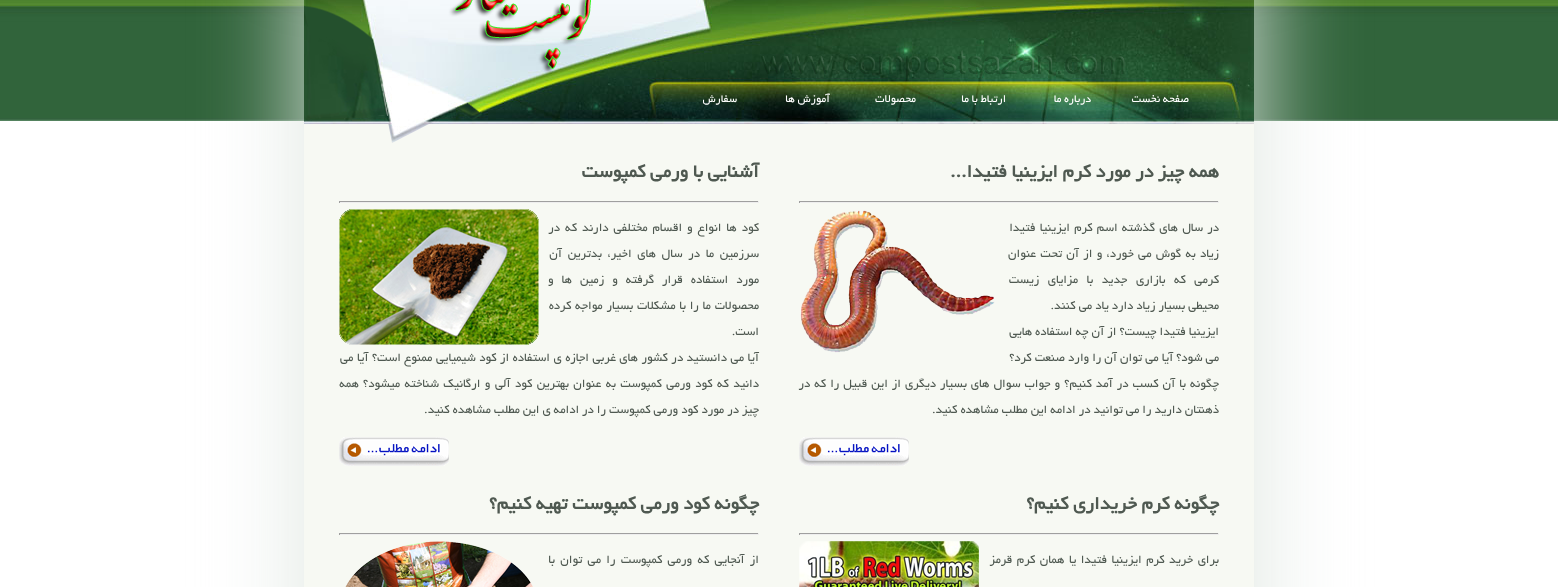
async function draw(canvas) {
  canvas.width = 1558
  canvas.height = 587
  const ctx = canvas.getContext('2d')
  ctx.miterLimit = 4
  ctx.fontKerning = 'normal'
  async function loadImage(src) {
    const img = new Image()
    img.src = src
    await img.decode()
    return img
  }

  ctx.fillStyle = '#fff'
  ctx.fillRect(0, 0, 1558, 587)
  ctx.drawImage(await loadImage('image0.png'), 0, 0, 1558, 121)
  ctx.fillStyle = '#dee6e0'
  ctx.filter = 'blur(50px)'
  ctx.beginPath()
  ctx.rect(305, -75, 950, 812)
  ctx.fill()
  ctx.filter = 'none'
  ctx.fillStyle = '#f7f9f3'
  ctx.fillRect(304, 73, 950, 514)
  ctx.drawImage(await loadImage('image1.png'), 304, 0, 950, 143)
  ctx.direction = 'rtl'
  ctx.font = '12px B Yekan'
  ctx.fillStyle = '#fff'
  ctx.fillText('صفحه نخست', 1189, 102)
  ctx.fillText('درباره ما', 1091, 102)
  ctx.fillText('ارتباط با ما', 1006, 102)
  ctx.fillText('محصولات', 916, 102)
  ctx.fillText('آموزش ها', 830, 102)
  ctx.fillText('سفارش', 737, 102)
  ctx.font = 'bold 20px B Yekan'
  ctx.fillStyle = '#4f5951'
  ctx.fillText('همه چیز در مورد کرم ایزینیا فتیدا...', 1219, 177)
  ctx.fillStyle = '#9f9f9f'
  ctx.fillRect(799, 201, 420, 1)
  ctx.fillStyle = '#eee'
  ctx.fillRect(1218, 201, 1, 2)
  ctx.fillRect(799, 202, 420, 1)
  ctx.fillStyle = '#9f9f9f'
  ctx.fillRect(799, 201, 1, 2)
  ctx.drawImage(await loadImage('image2.png'), 800, 210, 195, 143)
  ctx.wordSpacing = '1.25px'
  ctx.font = '13px B Yekan'
  ctx.fillStyle = '#4f5951'
  ctx.fillText('در سال های گذشته اسم کرم ایزینیا فتیدا', 1219, 231)
  ctx.fillText('زیاد به گوش می خورد، و از آن تحت عنوان', 1219, 257)
  ctx.wordSpacing = '5.5px'
  ctx.fillText('کرمی که بازاری جدید با مزایای زیست', 1219, 283)
  ctx.wordSpacing = '0px'
  ctx.fillText('محیطی بسیار زیاد دارد یاد می کنند.', 1219, 309)
  ctx.fillText('ایزینیا فتیدا چیست؟ از آن چه استفاده هایی', 1219, 335)
  ctx.fillText('می شود؟ آیا می توان آن را وارد صنعت کرد؟', 1219, 361)
  ctx.wordSpacing = '1px'
  ctx.fillText('چگونه با آن کسب در آمد کنیم؟ و جواب سوال های بسیار دیگری از این قبیل را که در', 1219, 387)
  ctx.wordSpacing = '0px'
  ctx.fillText('ذهنتان دارید را می توانید در ادامه این مطلب مشاهده کنید.', 1219, 413)
  ctx.drawImage(await loadImage('image3.png'), 799, 437, 110, 29)
  ctx.font = 'bold 20px B Yekan'
  ctx.fillText('آشنایی با ورمی کمپوست', 759, 177)
  ctx.fillStyle = '#9f9f9f'
  ctx.fillRect(339, 201, 420, 1)
  ctx.fillStyle = '#eee'
  ctx.fillRect(758, 201, 1, 2)
  ctx.fillRect(339, 202, 420, 1)
  ctx.fillStyle = '#9f9f9f'
  ctx.fillRect(339, 201, 1, 2)
  ctx.drawImage(await loadImage('image4.png'), 339, 209, 200, 136)
  ctx.wordSpacing = '2px'
  ctx.font = '13px B Yekan'
  ctx.fillStyle = '#4f5951'
  ctx.fillText('کود ها انواع و اقسام مختلفی دارند که در', 759, 231)
  ctx.wordSpacing = '2.75px'
  ctx.fillText('سرزمین ما در سال های اخیر، بدترین آن', 759, 257)
  ctx.wordSpacing = '5px'
  ctx.fillText('مورد استفاده قرار گرفته و زمین ها و', 759, 283)
  ctx.wordSpacing = '0.75px'
  ctx.fillText('محصولات ما را با مشکلات بسیار مواجه کرده', 759, 309)
  ctx.wordSpacing = '0px'
  ctx.fillText('است.', 759, 335)
  ctx.wordSpacing = '0.5px'
  ctx.fillText('آیا می دانستید در کشور های غربی اجازه ی استفاده از کود شیمیایی ممنوع است؟ آیا می', 759, 361)
  ctx.wordSpacing = '1.4px'
  ctx.fillText('دانید که کود ورمی کمپوست به عنوان بهترین کود آلی و ارگانیک شناخته میشود؟', 759, 387)
  ctx.wordSpacing = '0px'
  ctx.fillText('همه', 359, 387)
  ctx.fillText('چیز در مورد کود ورمی کمپوست را در ادامه ی این مطلب مشاهده کنید.', 759, 413)
  ctx.drawImage(await loadImage('image3.png'), 339, 437, 110, 29)
  ctx.font = 'bold 20px B Yekan'
  ctx.fillText('چگونه کرم خریداری کنیم؟', 1219, 509)
  ctx.fillStyle = '#9f9f9f'
  ctx.fillRect(799, 533, 420, 1)
  ctx.fillStyle = '#eee'
  ctx.fillRect(1218, 533, 1, 2)
  ctx.fillRect(799, 534, 420, 1)
  ctx.fillStyle = '#9f9f9f'
  ctx.fillRect(799, 533, 1, 2)
  ctx.wordSpacing = '1.5px'
  ctx.font = '13px B Yekan'
  ctx.fillStyle = '#4f5951'
  ctx.fillText('برای خرید کرم ایزینیا فتیدا یا همان کرم قرمز', 1219, 563)
  ctx.drawImage(await loadImage('image5.png'), 799, 541, 180, 46)
  ctx.wordSpacing = '0px'
  ctx.font = 'bold 20px B Yekan'
  ctx.fillText('چگونه کود ورمی کمپوست تهیه کنیم؟', 759, 509)
  ctx.fillStyle = '#9f9f9f'
  ctx.fillRect(339, 533, 420, 1)
  ctx.fillStyle = '#eee'
  ctx.fillRect(758, 533, 1, 2)
  ctx.fillRect(339, 534, 420, 1)
  ctx.fillStyle = '#9f9f9f'
  ctx.fillRect(339, 533, 1, 2)
  ctx.wordSpacing = '2.25px'
  ctx.font = '13px B Yekan'
  ctx.fillStyle = '#4f5951'
  ctx.fillText('از آنجایی که ورمی کمپوست را می توان با', 759, 563)
  ctx.drawImage(await loadImage('image6.png'), 345, 541, 188, 46)
}

draw(document.querySelector('canvas'))
